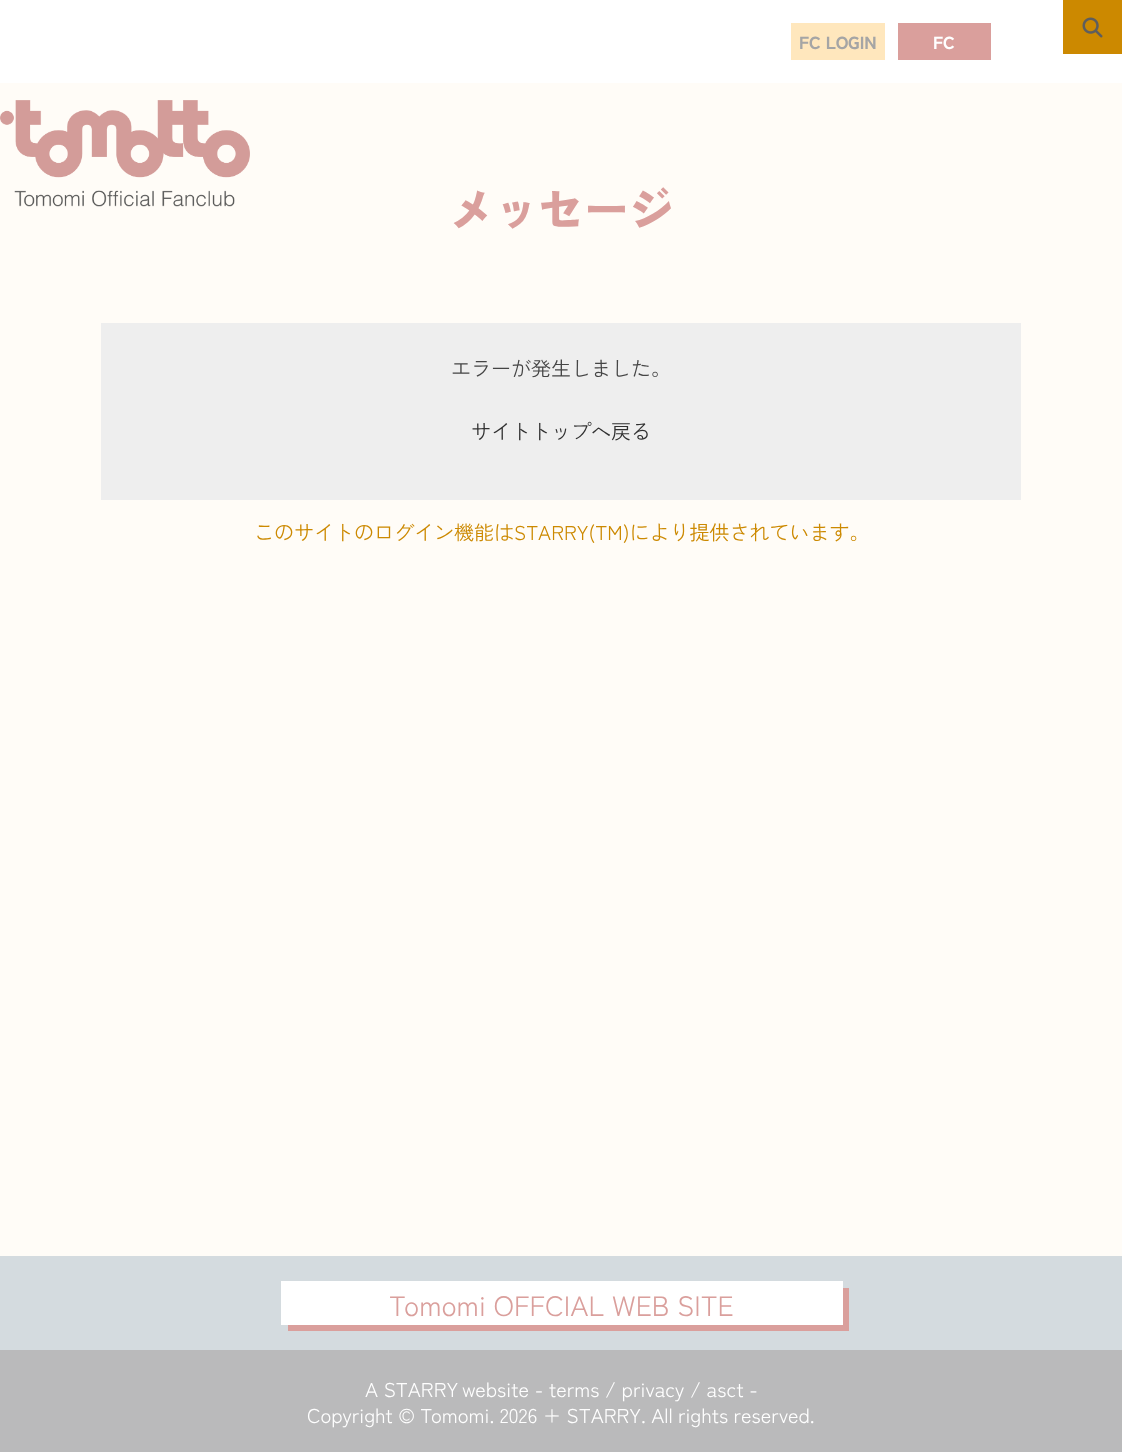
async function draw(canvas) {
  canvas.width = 1122
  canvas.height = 1452
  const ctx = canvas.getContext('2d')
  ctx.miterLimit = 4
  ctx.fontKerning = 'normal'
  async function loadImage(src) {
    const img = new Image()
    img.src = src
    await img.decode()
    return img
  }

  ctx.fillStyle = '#fffcf7'
  ctx.fillRect(0, 0, 1122, 1452)
  ctx.fillStyle = '#fff'
  ctx.fillRect(0, 0, 1122, 83)
  ctx.fillStyle = '#ffe7bd'
  ctx.fillRect(791, 23, 94, 37)
  ctx.font = '900 17.5px Zen Kaku Gothic Antique'
  ctx.fillStyle = '#a5a5a5'
  ctx.fillText('FC LOGIN', 799, 49)
  ctx.fillStyle = '#da9f9c'
  ctx.fillRect(898, 23, 93, 37)
  ctx.fillStyle = '#fff'
  ctx.fillText('FC', 933, 49)
  ctx.fillStyle = '#cc8900'
  ctx.fillRect(1063, 0, 59, 54)
  ctx.drawImage(await loadImage('image0.png'), 1082, 17, 21, 21)
  ctx.drawImage(await loadImage('image1.png'), 0, 100, 250, 107)
  ctx.font = '900 45px Zen Kaku Gothic Antique'
  ctx.fillStyle = '#da9f9c'
  ctx.fillText('メッセージ', 449, 226)
  ctx.fillStyle = '#eee'
  ctx.fillRect(101, 323, 920, 177)
  ctx.font = '20px Zen Kaku Gothic Antique'
  ctx.fillStyle = '#454545'
  ctx.fillText('エラーが発生しました。', 451, 376)
  ctx.fillStyle = '#303030'
  ctx.fillText('サイトトップへ戻る', 471, 439)
  ctx.fillStyle = '#cc8900'
  ctx.fillText('このサイトのログイン機能はSTARRY(TM)により提供されています。', 254, 540)
  ctx.fillStyle = '#bababb'
  ctx.fillRect(0, 1350, 1122, 102)
  ctx.fillStyle = '#d4dbdf'
  ctx.fillRect(0, 1256, 1122, 94)
  ctx.fillStyle = '#da9f9c'
  ctx.beginPath()
  ctx.moveTo(288, 1325)
  ctx.lineTo(288, 1331)
  ctx.lineTo(849, 1331)
  ctx.lineTo(849, 1288)
  ctx.lineTo(842, 1288)
  ctx.lineTo(842, 1325)
  ctx.closePath()
  ctx.fill()
  ctx.fillStyle = '#fff'
  ctx.fillRect(281, 1281, 562, 44)
  ctx.font = '28px Zen Kaku Gothic Antique'
  ctx.fillStyle = '#da9f9c'
  ctx.fillText('Tomomi OFFCIAL WEB SITE', 389, 1316)
  ctx.font = '20px Zen Kaku Gothic Antique'
  ctx.fillStyle = '#fff'
  ctx.fillText('A STARRY', 365, 1397)
  ctx.fillText('website - terms / privacy / asct -', 462, 1397)
  ctx.wordSpacing = '-0.25px'
  ctx.fillText('Copyright © Tomomi. 2026 + STARRY. All rights reserved.', 307, 1423)
}

draw(document.querySelector('canvas'))
